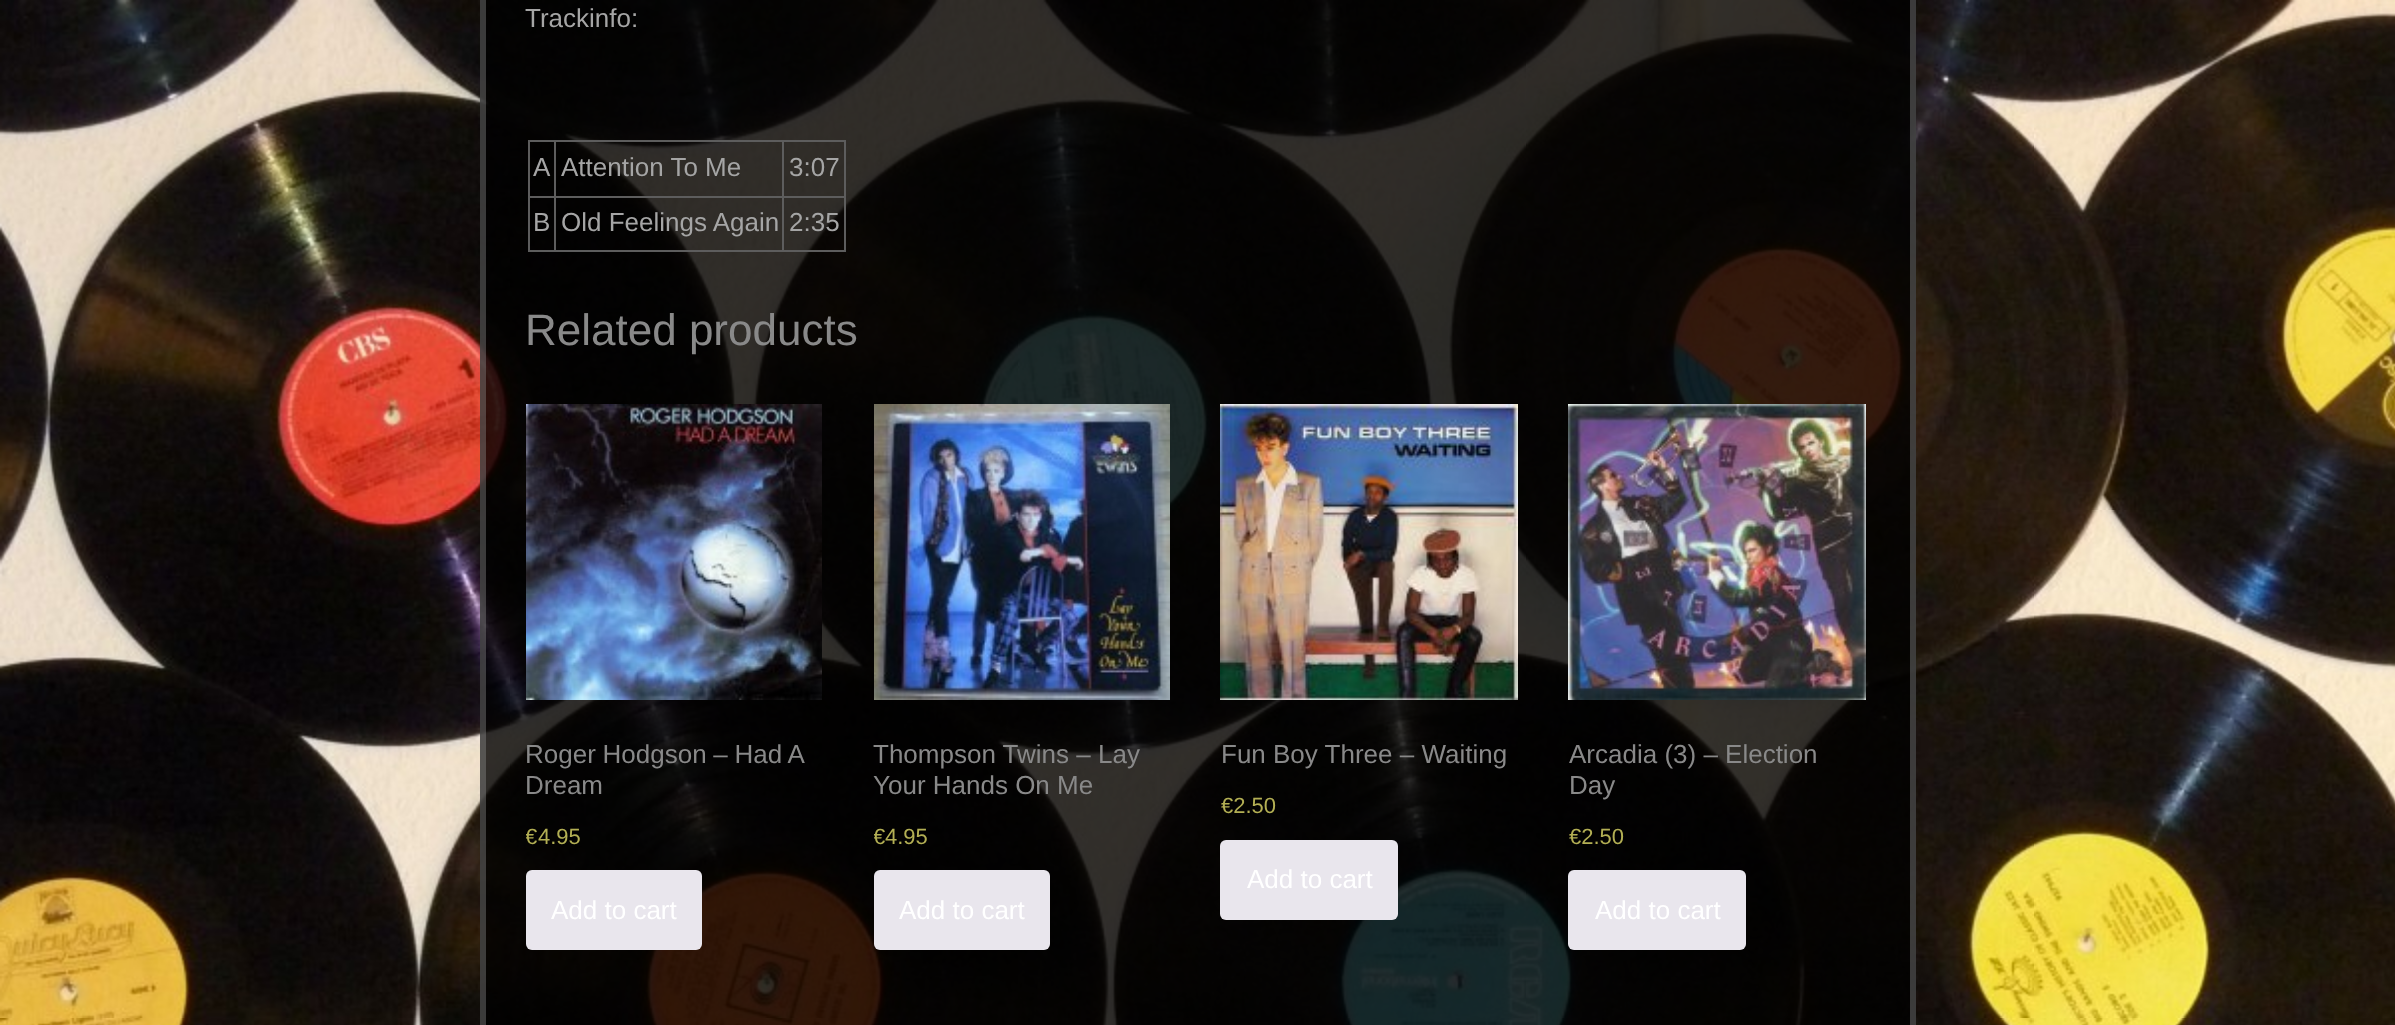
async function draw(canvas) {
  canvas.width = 2395
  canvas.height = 1025
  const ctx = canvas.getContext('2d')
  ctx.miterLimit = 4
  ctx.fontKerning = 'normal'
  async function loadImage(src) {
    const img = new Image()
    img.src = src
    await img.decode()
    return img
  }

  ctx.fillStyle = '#fff'
  ctx.fillRect(0, 0, 2395, 1025)
  ctx.drawImage(await loadImage('image0.png'), 0, 0, 2395, 1025)
  ctx.fillStyle = '#000000cc'
  ctx.fillRect(480, 0, 1436, 1025)
  ctx.fillStyle = '#91919166'
  ctx.beginPath()
  ctx.moveTo(1916, -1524)
  ctx.lineTo(1916, 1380)
  ctx.lineTo(1910, 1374)
  ctx.lineTo(1910, -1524)
  ctx.closePath()
  ctx.fill()
  ctx.beginPath()
  ctx.moveTo(480, 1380)
  ctx.lineTo(480, -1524)
  ctx.lineTo(486, -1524)
  ctx.lineTo(486, 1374)
  ctx.closePath()
  ctx.fill()
  ctx.font = '26px Liberation Sans'
  ctx.fillStyle = '#a5a5a5'
  ctx.fillText('Trackinfo:', 525, 27)
  ctx.fillStyle = '#5d5d5d'
  ctx.fillRect(782, 140, 64, 2)
  ctx.fillRect(782, 196, 64, 2)
  ctx.fillRect(844, 196, 2, 56)
  ctx.fillRect(782, 250, 64, 2)
  ctx.fillRect(782, 196, 2, 56)
  ctx.fillRect(554, 196, 230, 2)
  ctx.fillRect(782, 140, 2, 58)
  ctx.fillRect(554, 140, 230, 2)
  ctx.fillRect(554, 250, 230, 2)
  ctx.fillRect(554, 196, 2, 56)
  ctx.fillRect(528, 196, 28, 2)
  ctx.fillRect(554, 140, 2, 58)
  ctx.fillRect(528, 140, 28, 2)
  ctx.fillRect(528, 250, 28, 2)
  ctx.fillRect(528, 196, 2, 56)
  ctx.fillRect(528, 140, 2, 58)
  ctx.fillStyle = '#a5a5a5'
  ctx.fillText('A', 533, 176)
  ctx.fillText('Attention To Me', 561, 176)
  ctx.fillStyle = '#5d5d5d'
  ctx.fillRect(844, 140, 2, 58)
  ctx.fillStyle = '#a5a5a5'
  ctx.fillText('3:07', 789, 176)
  ctx.fillText('B', 533, 231)
  ctx.fillText('Old Feelings Again', 561, 231)
  ctx.fillText('2:35', 789, 231)
  ctx.font = '44px Liberation Sans'
  ctx.fillStyle = '#898989'
  ctx.fillText('Related products', 525, 345)
  ctx.drawImage(await loadImage('image1.png'), 526, 404, 296, 296)
  ctx.wordSpacing = '-0.5px'
  ctx.font = '26px Liberation Sans'
  ctx.fillText('Roger Hodgson – Had A', 525, 763)
  ctx.wordSpacing = '0px'
  ctx.fillText('Dream', 525, 794)
  ctx.save()
  ctx.beginPath()
  ctx.rect(526, 358, 296, 592)
  ctx.clip()
  ctx.font = '22px Liberation Sans'
  ctx.fillStyle = '#b3af54'
  ctx.fillText('€', 525, 844)
  ctx.restore()
  ctx.font = '22px Liberation Sans'
  ctx.fillStyle = '#b3af54'
  ctx.fillText('4.95', 538, 844)
  ctx.fillStyle = '#e9e6ed'
  ctx.beginPath()
  ctx.roundRect(526, 870, 176, 80, 6)
  ctx.fill()
  ctx.font = '26px Liberation Sans'
  ctx.fillStyle = '#fff'
  ctx.fillText('Add to cart', 551, 919)
  ctx.drawImage(await loadImage('image2.png'), 874, 404, 296, 296)
  ctx.fillStyle = '#898989'
  ctx.fillText('Thompson Twins – Lay', 873, 763)
  ctx.fillText('Your Hands On Me', 873, 794)
  ctx.save()
  ctx.beginPath()
  ctx.rect(874, 358, 296, 592)
  ctx.clip()
  ctx.font = '22px Liberation Sans'
  ctx.fillStyle = '#b3af54'
  ctx.fillText('€', 873, 844)
  ctx.restore()
  ctx.font = '22px Liberation Sans'
  ctx.fillStyle = '#b3af54'
  ctx.fillText('4.95', 885, 844)
  ctx.fillStyle = '#e9e6ed'
  ctx.beginPath()
  ctx.roundRect(874, 870, 176, 80, 6)
  ctx.fill()
  ctx.font = '26px Liberation Sans'
  ctx.fillStyle = '#fff'
  ctx.fillText('Add to cart', 899, 919)
  ctx.drawImage(await loadImage('image3.png'), 1220, 404, 298, 296)
  ctx.fillStyle = '#898989'
  ctx.fillText('Fun Boy Three – Waiting', 1221, 763)
  ctx.font = '22px Liberation Sans'
  ctx.fillStyle = '#b3af54'
  ctx.fillText('€2.50', 1221, 813)
  ctx.fillStyle = '#e9e6ed'
  ctx.beginPath()
  ctx.roundRect(1220, 840, 178, 80, 6)
  ctx.fill()
  ctx.font = '26px Liberation Sans'
  ctx.fillStyle = '#fff'
  ctx.fillText('Add to cart', 1247, 888)
  ctx.drawImage(await loadImage('image4.png'), 1568, 404, 298, 296)
  ctx.fillStyle = '#898989'
  ctx.fillText('Arcadia (3) – Election', 1569, 763)
  ctx.fillText('Day', 1569, 794)
  ctx.font = '22px Liberation Sans'
  ctx.fillStyle = '#b3af54'
  ctx.fillText('€2.50', 1569, 844)
  ctx.fillStyle = '#e9e6ed'
  ctx.beginPath()
  ctx.roundRect(1568, 870, 178, 80, 6)
  ctx.fill()
  ctx.font = '26px Liberation Sans'
  ctx.fillStyle = '#fff'
  ctx.fillText('Add to cart', 1595, 919)
}

draw(document.querySelector('canvas'))
